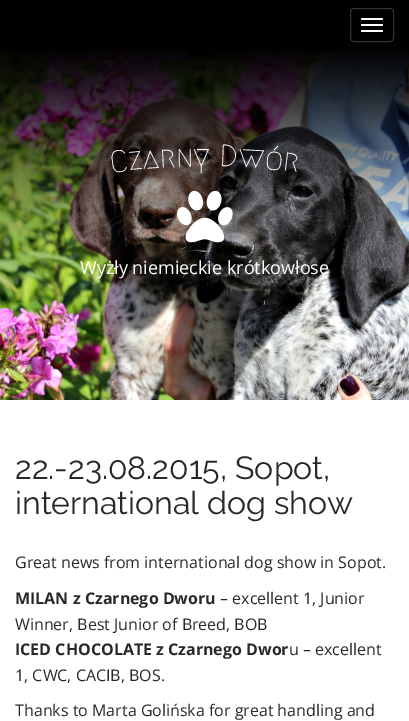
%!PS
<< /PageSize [409 721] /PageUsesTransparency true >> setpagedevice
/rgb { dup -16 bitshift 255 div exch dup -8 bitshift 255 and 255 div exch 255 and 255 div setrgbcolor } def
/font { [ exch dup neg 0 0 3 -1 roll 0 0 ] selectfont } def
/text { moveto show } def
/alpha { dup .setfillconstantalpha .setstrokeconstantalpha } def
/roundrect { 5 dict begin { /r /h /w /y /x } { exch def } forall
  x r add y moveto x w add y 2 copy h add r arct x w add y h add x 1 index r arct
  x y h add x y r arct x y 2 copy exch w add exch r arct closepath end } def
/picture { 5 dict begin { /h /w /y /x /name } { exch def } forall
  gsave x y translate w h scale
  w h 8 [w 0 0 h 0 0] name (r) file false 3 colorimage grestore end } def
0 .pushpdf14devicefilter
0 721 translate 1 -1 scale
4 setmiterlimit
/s1 { /Megrim-Medium 31 font 16#FFFFFF rgb } def
/s2 { /OpenSans-Regular 18 font 16#FFFFFF rgb } def
/s3 { /Raleway-Thin 32 font 16#282828 rgb } def
/s4 { /OpenSans-Regular 16 font 16#282828 rgb } def
/s5 { /OpenSans-Bold 16 font 16#282828 rgb } def
16#FFFFFF rgb
0 0 409 721 rectfill
(pic1.raw) 0 0 409 400 picture
0.85 alpha
16#000000 rgb
57 46 352 4 rectfill
1 alpha
16#333333 rgb
350.5 8.5 43 33 3.5 roundrect stroke
16#FFFFFF rgb
361 18 22 2 1 roundrect fill
361 24 22 2 1 roundrect fill
361 30 22 2 1 roundrect fill
/Megrim-Medium 31 font
gsave 111 173 translate -7 rotate 0 0 moveto (C) show grestore
gsave 129 170 translate -5 rotate 0 0 moveto (z) show grestore
gsave 143 169 translate -4 rotate 0 0 moveto (a) show grestore
gsave 160 168 translate -3 rotate 0 0 moveto (r) show grestore
gsave 176 167 translate -1 rotate 0 0 moveto (n) show grestore
(y) 193 167 text
gsave 219 166 translate 2 rotate 0 0 moveto (D) show grestore
gsave 238 167 translate 3 rotate 0 0 moveto (w) show grestore
gsave 264 169 translate 5 rotate 0 0 moveto (ó) show grestore
gsave 282 170 translate 7 rotate 0 0 moveto (r) show grestore
(pic2.raw) 177 190 56 53 picture
s2
(Wyżły niemieckie krótkowłose) 80 274 text
s3
(22.-23.08.2015, Sopot,) 15 479 text
(international dog show) 15 514 text
s4
(Great news from international dog show in Sopot.) 15 568 text
s5
(MILAN z Czarnego Dworu) 15 604 text
s4
(– excellent 1, Junior) 220 604 text
(Winner, Best Junior of Breed, BOB) 15 630 text
s5
(ICED CHOCOLATE z Czarnego Dwor) 15 655 text
s4
(u – excellent) 289 655 text
(1, CWC, CACIB, BOS.) 15 681 text
(Thanks to Marta Golińska for great handling and) 15 716 text
.poppdf14devicefilter showpage
